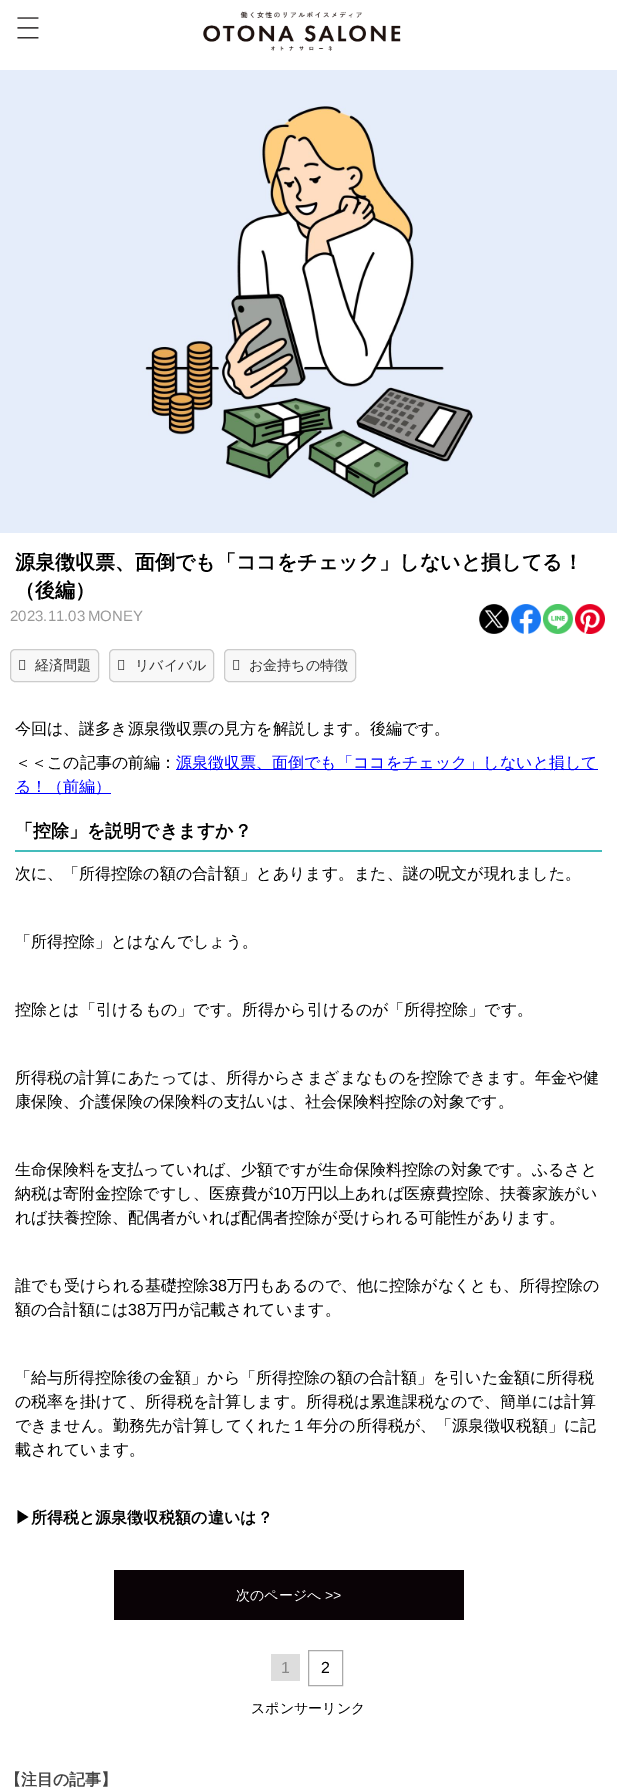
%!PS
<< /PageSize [617 1790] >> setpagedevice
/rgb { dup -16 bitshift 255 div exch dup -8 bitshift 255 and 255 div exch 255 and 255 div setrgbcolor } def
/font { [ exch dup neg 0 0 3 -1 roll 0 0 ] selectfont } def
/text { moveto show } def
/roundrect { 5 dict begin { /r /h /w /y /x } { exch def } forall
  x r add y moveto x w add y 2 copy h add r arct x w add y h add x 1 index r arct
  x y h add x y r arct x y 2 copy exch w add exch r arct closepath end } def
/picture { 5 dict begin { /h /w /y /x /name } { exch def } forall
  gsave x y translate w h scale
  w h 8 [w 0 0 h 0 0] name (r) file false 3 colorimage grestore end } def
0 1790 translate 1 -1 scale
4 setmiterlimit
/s1 { /WenQuanYiZenHei-Bold 20 font 16#000000 rgb } def
/s2 { /LiberationSans-Regular 15 font 16#999999 rgb } def
/s3 { /WenQuanYiZenHei-Medium 14 font 16#333333 rgb } def
/s4 { /WenQuanYiZenHei-Medium 16 font 16#000000 rgb } def
/s5 { /WenQuanYiZenHei-Medium 16 font 16#0000FF rgb } def
/s6 { /WenQuanYiZenHei-Bold 18 font 16#000000 rgb } def
/s7 { /LiberationSans-Regular 16 font 16#000000 rgb } def
/s8 { /WenQuanYiZenHei-Bold 16 font 16#000000 rgb } def
/s9 { /WenQuanYiZenHei-Medium 14 font 16#FFFFFF rgb } def
/s10 { /LiberationSans-Regular 14 font 16#FFFFFF rgb } def
/s11 { /LiberationSans-Regular 16 font 16#888888 rgb } def
/s12 { /WenQuanYiZenHei-Medium 14 font 16#000000 rgb } def
/s13 { /WenQuanYiZenHei-Bold 16 font 16#444444 rgb } def
16#FFFFFF rgb
0 0 617 1790 rectfill
(pic1.raw) 17 17 22 22 picture
(pic2.raw) 203 11 198 40 picture
(pic3.raw) 0 70 617 463 picture
s1
(源泉徴収票、面倒でも「ココをチェック」しないと損してる！) 15 569 text
(（後編）) 15 597 text
s2
(2023.11.03) 10 621 text
(MONEY) 88 621 text
(pic4.raw) 479 604 30 30 picture
(pic5.raw) 511 604 30 30 picture
(pic6.raw) 543 604 30 30 picture
(pic7.raw) 575 604 30 30 picture
16#F8F8F8 rgb
10.5 649.5 88 32 4.5 roundrect gsave fill grestore
16#CCCCCC rgb
stroke
(pic8.raw) 19 660 7 10 picture
s3
(経済問題) 35 670 text
16#F8F8F8 rgb
109.5 649.5 104 32 4.5 roundrect gsave fill grestore
16#CCCCCC rgb
stroke
(pic8.raw) 118 660 7 10 picture
s3
(リバイバル) 135 670 text
16#F8F8F8 rgb
224.5 649.5 131 32 4.5 roundrect gsave fill grestore
16#CCCCCC rgb
stroke
(pic8.raw) 233 660 7 10 picture
s3
(お金持ちの特徴) 249 670 text
s4
(今回は、謎多き源泉徴収票の見方を解説します。後編です。) 15 734 text
(＜＜この記事の前編：) 15 768 text
16#0000FF rgb
176 769 422 1 rectfill
(源泉徴収票、面倒でも「ココをチェック」しないと損して) 176 768 text
15 793 96 1 rectfill
(る！（前編）) 15 792 text
16#44BCBB rgb
15 850 587 2 rectfill
s6
(「控除」を説明できますか？) 15 837 text
s4
(次に、「所得控除の額の合計額」とあります。また、謎の呪文が現れました。) 15 879 text
(「所得控除」とはなんでしょう。) 15 947 text
(控除とは「引けるもの」です。所得から引けるのが「所得控除」です。) 15 1015 text
(所得税の計算にあたっては、所得からさまざまなものを控除できます。年金や健) 15 1083 text
(康保険、介護保険の保険料の支払いは、社会保険料控除の対象です。) 15 1107 text
(生命保険料を支払っていれば、少額ですが生命保険料控除の対象です。ふるさと) 15 1175 text
(納税は寄附金控除ですし、医療費が) 15 1199 text
s7
(10) 273 1199 text
s4
(万円以上あれば医療費控除、扶養家族がい) 291 1199 text
(れば扶養控除、配偶者がいれば配偶者控除が受けられる可能性があります。) 15 1223 text
(誰でも受けられる基礎控除) 15 1291 text
s7
(38) 209 1291 text
s4
(万円もあるので、他に控除がなくとも、所得控除の) 227 1291 text
(額の合計額には) 15 1315 text
s7
(38) 128 1315 text
s4
(万円が記載されています。) 146 1315 text
(「給与所得控除後の金額」から「所得控除の額の合計額」を引いた金額に所得税) 15 1383 text
(の税率を掛けて、所得税を計算します。所得税は累進課税なので、簡単には計算) 15 1407 text
(できません。勤務先が計算してくれた１年分の所得税が、「源泉徴収税額」に記) 15 1431 text
(載されています。) 15 1455 text
s8
(▶所得税と源泉徴収税額の違いは？) 15 1523 text
16#0A0306 rgb
114 1570 350 50 rectfill
s9
(次のページへ) 236 1600 text
s10
(>>) 325 1600 text
16#DDDDDD rgb
271 1654 29 27 rectfill
s11
(1) 281 1673 text
16#AAAAAA rgb
308.5 1650.5 34 35 rectstroke
s7
(2) 321 1673 text
s12
(スポンサーリンク) 251 1713 text
s13
(【注目の記事】) 5 1785 text
showpage
